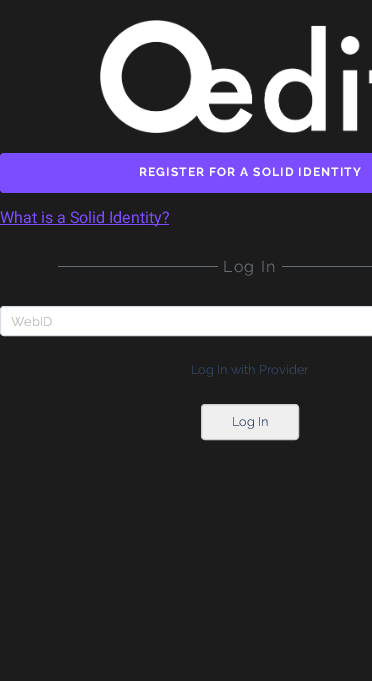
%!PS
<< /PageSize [372 681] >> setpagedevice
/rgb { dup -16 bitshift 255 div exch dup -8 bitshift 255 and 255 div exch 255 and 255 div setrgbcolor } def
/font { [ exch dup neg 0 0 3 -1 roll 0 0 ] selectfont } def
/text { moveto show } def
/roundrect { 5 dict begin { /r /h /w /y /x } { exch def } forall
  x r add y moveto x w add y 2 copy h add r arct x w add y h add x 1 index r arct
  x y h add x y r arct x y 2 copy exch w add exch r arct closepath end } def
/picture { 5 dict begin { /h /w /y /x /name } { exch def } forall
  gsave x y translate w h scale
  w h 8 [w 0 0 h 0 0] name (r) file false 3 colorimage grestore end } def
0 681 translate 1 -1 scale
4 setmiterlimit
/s1 { /Roboto-Regular 16 font 16#7C4DFF rgb } def
/s2 { /Raleway-Regular 12.75 font 16#B3B3B3 rgb } def
/s3 { /Raleway-Regular 12.75 font 16#354866 rgb } def
16#1C1C1C rgb
0 0 372 681 rectfill
(pic1.raw) 100 20 272 113 picture
16#7C4DFF rgb
0 153 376 40 4 roundrect fill
/Raleway-Bold 12 font
16#FFFFFF rgb
139 176 moveto 1.1 0 (REGISTER FOR A SOLID IDENTITY) ashow
16#7C4DFF rgb
0 224 169 1 rectfill
s1
(What is a Solid Identity?) 0 223 text
16#656E75 rgb
58 266 160 1 rectfill
/Raleway-Regular 16 font
223 272 moveto 1.25 0 (Log In) ashow
282 266 90 1 rectfill
16#FFFFFF rgb
0.5 306.5 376 29 3.5 roundrect gsave fill grestore
16#DAE0E6 rgb
stroke
s2
(WebID) 11 326 text
s3
(Log In with Provider) 191 374 text
16#EFEFEF rgb
201.5 404.5 97 35 3.5 roundrect gsave fill grestore
16#CCCCCC rgb
stroke
s3
(Log In) 232 426 text
showpage
